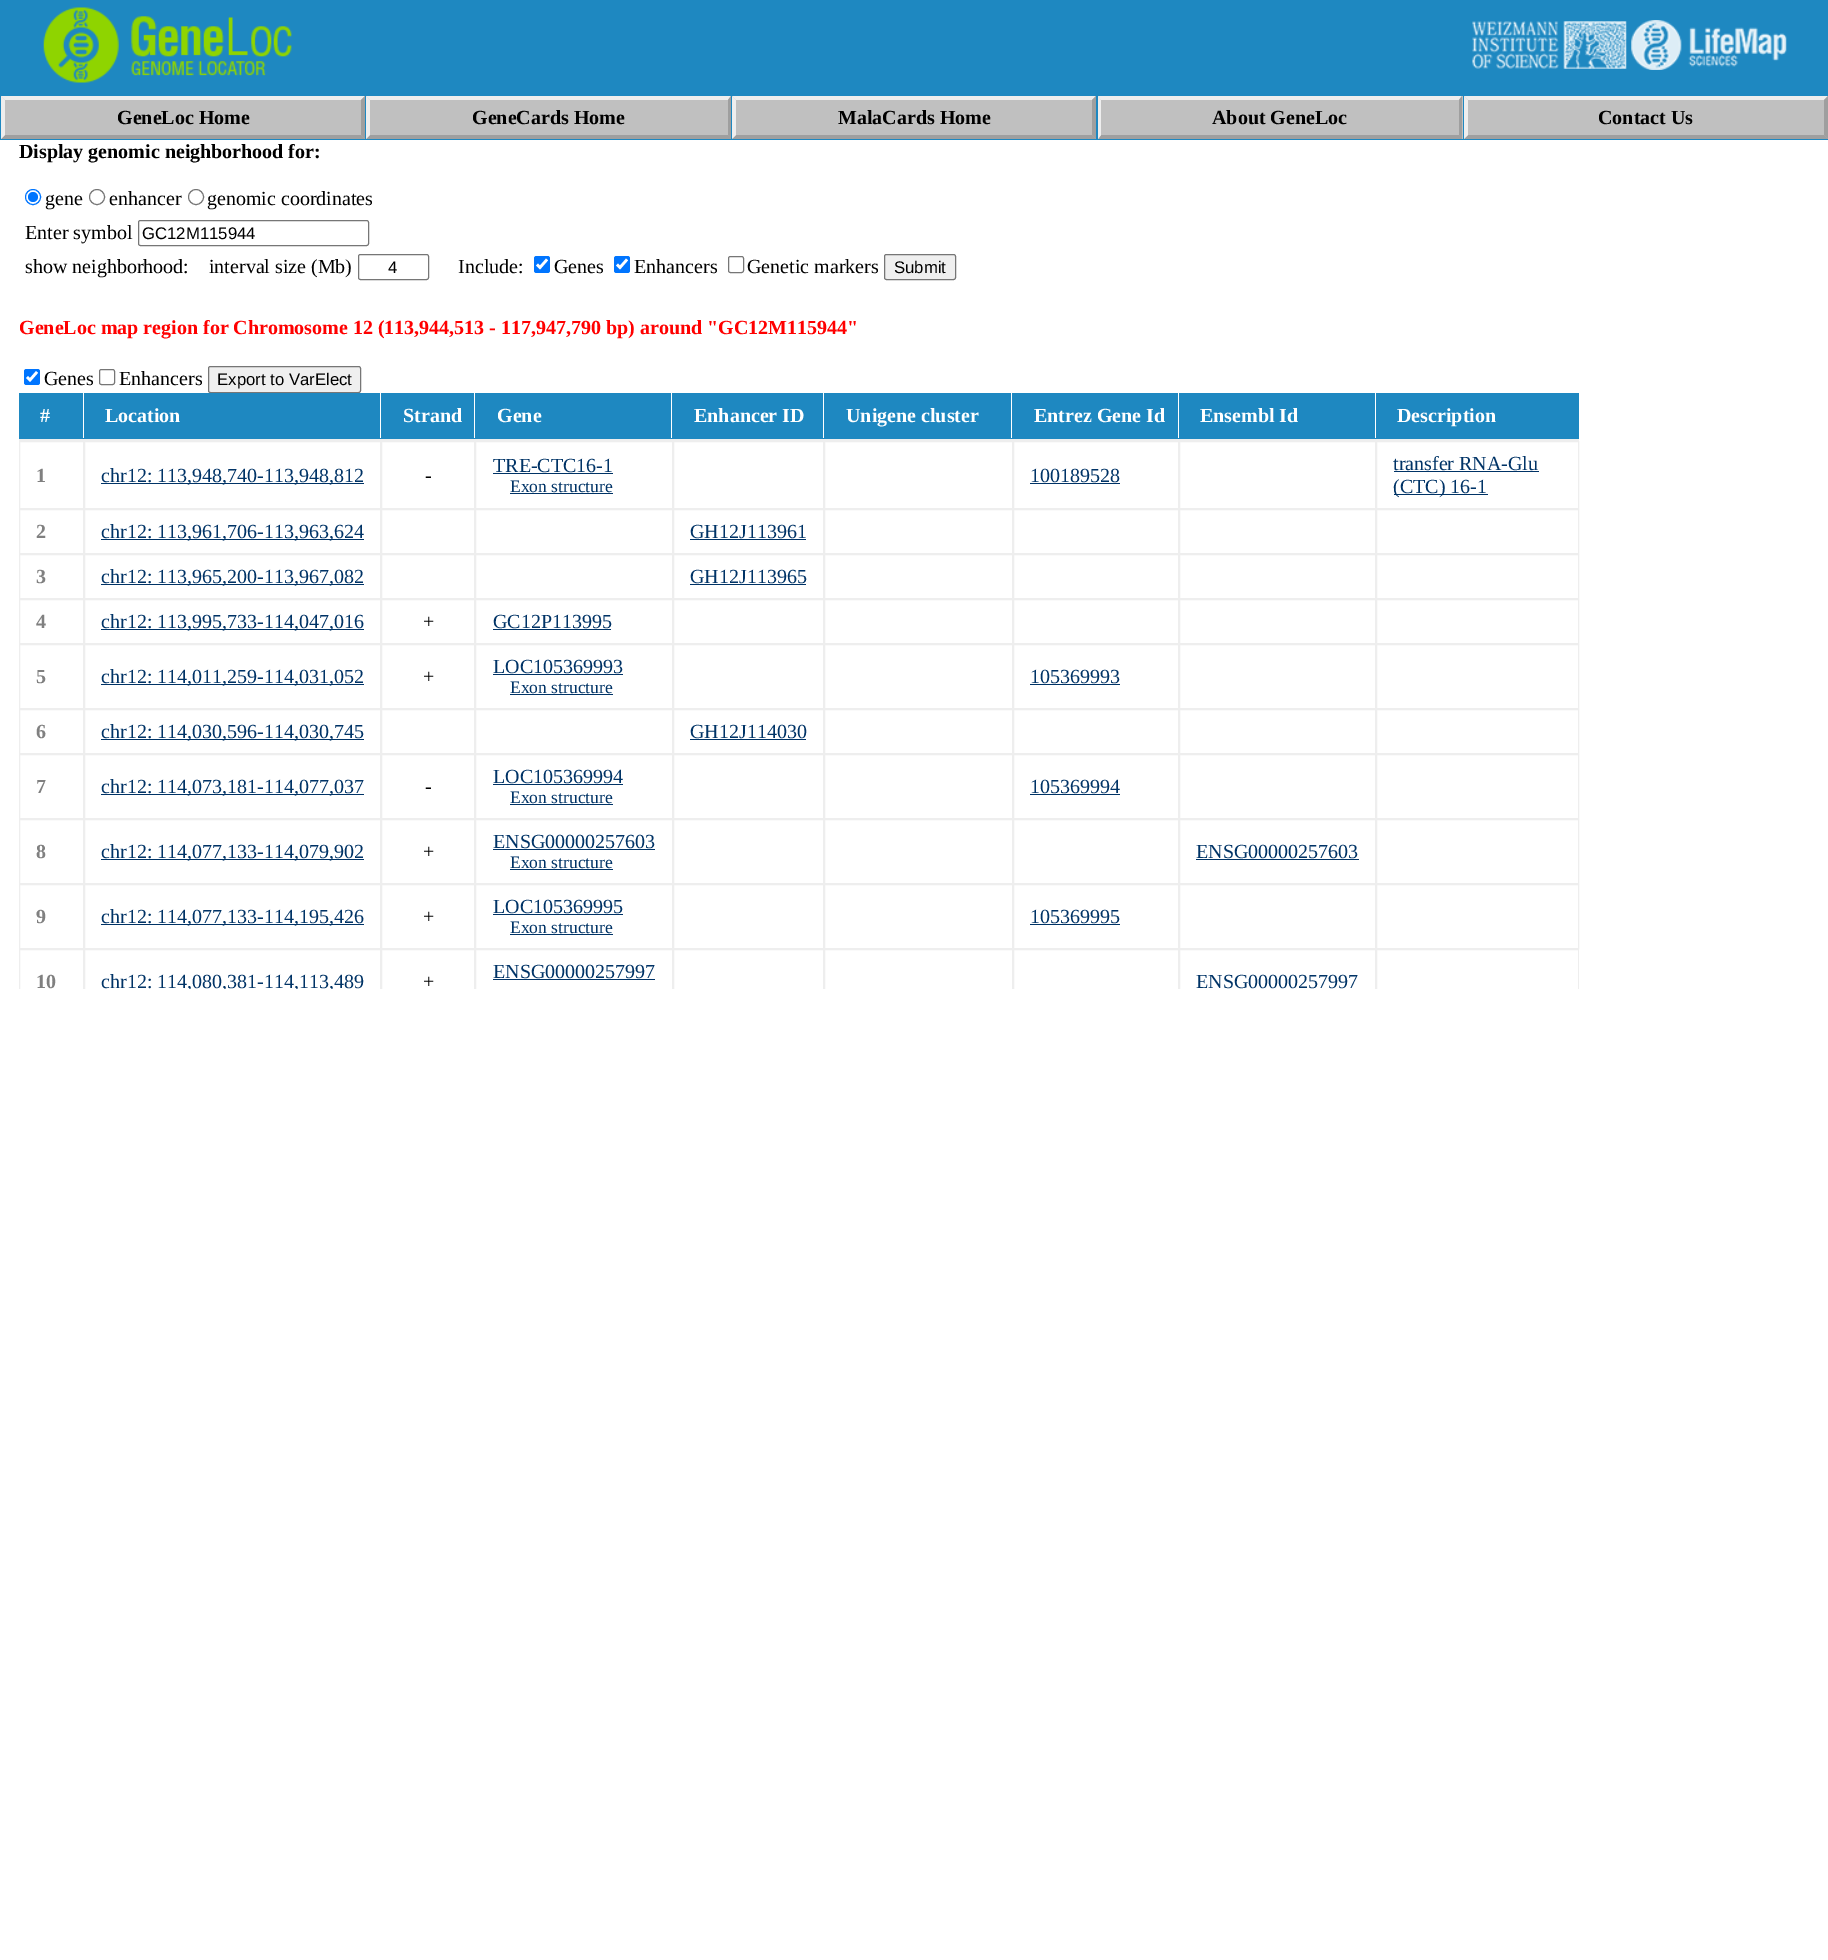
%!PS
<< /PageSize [1828 1960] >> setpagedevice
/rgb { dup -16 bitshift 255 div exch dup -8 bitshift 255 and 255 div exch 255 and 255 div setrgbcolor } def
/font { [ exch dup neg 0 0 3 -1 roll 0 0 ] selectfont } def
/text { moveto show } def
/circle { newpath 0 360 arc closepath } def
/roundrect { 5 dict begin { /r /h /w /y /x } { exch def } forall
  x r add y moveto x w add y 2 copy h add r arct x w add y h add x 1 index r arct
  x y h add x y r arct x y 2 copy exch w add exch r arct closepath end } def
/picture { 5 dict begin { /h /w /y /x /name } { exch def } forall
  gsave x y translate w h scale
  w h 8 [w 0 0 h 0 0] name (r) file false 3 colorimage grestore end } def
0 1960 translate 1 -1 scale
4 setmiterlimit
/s1 { /LiberationSerif-Bold 20 font 16#000000 rgb } def
/s2 { /LiberationSerif-Regular 20 font 16#000000 rgb } def
/s3 { /LiberationSans-Regular 16.75 font 16#000000 rgb } def
/s4 { /LiberationSerif-Bold 20 font 16#FF0000 rgb } def
/s5 { /LiberationSerif-Bold 20 font 16#FFFFFF rgb } def
/s6 { /LiberationSerif-Bold 20 font 16#808080 rgb } def
/s7 { /LiberationSerif-Regular 20 font 16#003366 rgb } def
/s8 { /LiberationSerif-Regular 17.5 font 16#003366 rgb } def
16#FFFFFF rgb
0 0 1828 1960 rectfill
16#1E88C1 rgb
0 0 1828 140 rectfill
(pic1.raw) 43 7 249 76 picture
(pic2.raw) 1472 21 155 48 picture
(pic3.raw) 1631 20 156 50 picture
16#C0C0C0 rgb
1 96 364 43 rectfill
16#EEEEEE rgb
1 96 moveto 365 96 lineto 361 100 lineto 5 100 lineto closepath fill
16#9F9F9F rgb
365 96 moveto 365 139 lineto 361 135 lineto 361 100 lineto closepath fill
365 139 moveto 1 139 lineto 5 135 lineto 361 135 lineto closepath fill
16#EEEEEE rgb
1 139 moveto 1 96 lineto 5 100 lineto 5 135 lineto closepath fill
s1
(GeneLoc Home) 117 124 text
16#C0C0C0 rgb
366 96 365 43 rectfill
16#EEEEEE rgb
366 96 moveto 731 96 lineto 728 100 lineto 370 100 lineto closepath fill
16#9F9F9F rgb
731 96 moveto 731 139 lineto 728 135 lineto 728 100 lineto closepath fill
731 139 moveto 366 139 lineto 370 135 lineto 728 135 lineto closepath fill
16#EEEEEE rgb
366 139 moveto 366 96 lineto 370 100 lineto 370 135 lineto closepath fill
s1
(GeneCards Home) 472 124 text
16#C0C0C0 rgb
733 96 363 43 rectfill
16#EEEEEE rgb
732 96 moveto 1096 96 lineto 1092 100 lineto 736 100 lineto closepath fill
16#9F9F9F rgb
1096 96 moveto 1096 139 lineto 1092 135 lineto 1092 100 lineto closepath fill
1096 139 moveto 732 139 lineto 736 135 lineto 1092 135 lineto closepath fill
16#EEEEEE rgb
732 139 moveto 732 96 lineto 736 100 lineto 736 135 lineto closepath fill
s1
(MalaCards Home) 838 124 text
16#C0C0C0 rgb
1098 96 365 43 rectfill
16#EEEEEE rgb
1098 96 moveto 1462 96 lineto 1459 100 lineto 1101 100 lineto closepath fill
16#9F9F9F rgb
1462 96 moveto 1462 139 lineto 1459 135 lineto 1459 100 lineto closepath fill
1462 139 moveto 1098 139 lineto 1101 135 lineto 1459 135 lineto closepath fill
16#EEEEEE rgb
1098 139 moveto 1098 96 lineto 1101 100 lineto 1101 135 lineto closepath fill
s1
(About GeneLoc) 1212 124 text
16#C0C0C0 rgb
1464 96 364 43 rectfill
16#EEEEEE rgb
1464 96 moveto 1828 96 lineto 1824 100 lineto 1468 100 lineto closepath fill
16#9F9F9F rgb
1828 96 moveto 1828 139 lineto 1824 135 lineto 1824 100 lineto closepath fill
1828 139 moveto 1464 139 lineto 1468 135 lineto 1824 135 lineto closepath fill
16#EEEEEE rgb
1464 139 moveto 1464 96 lineto 1468 100 lineto 1468 135 lineto closepath fill
s1
(Contact Us) 1598 124 text
(Display genomic neighborhood for:) 19 158 text
16#0075FF rgb
33 197 7.5 circle stroke
33 197 5 circle fill
s2
(gene) 45 205 text
16#767676 rgb
97 197 7.5 circle stroke
s2
(enhancer) 109 205 text
16#767676 rgb
196 197 7.5 circle stroke
s2
(genomic coordinates) 207 205 text
(Enter symbol) 25 239 text
16#767676 rgb
138.5 220.5 230 25 2 roundrect stroke
s3
(GC12M115944) 142 239 text
s2
(show neighborhood:    interval size \(Mb\)) 25 273 text
16#767676 rgb
358.5 254.5 70 25 2 roundrect stroke
s3
(4) 388 273 text
s2
(Include:) 458 273 text
16#0075FF rgb
534 256 16 17 2.5 roundrect fill
16#FFFFFF rgb
2.6 setlinewidth
537 264.5 moveto 540 267.5 lineto 547 259.5 lineto stroke
s2
(Genes) 554 273 text
16#0075FF rgb
614 256 16 17 2.5 roundrect fill
16#FFFFFF rgb
617 264.5 moveto 620 267.5 lineto 627 259.5 lineto stroke
s2
(Enhancers) 634 273 text
16#767676 rgb
1 setlinewidth
728.5 256.5 15 16 2 roundrect stroke
s2
(Genetic markers) 747 273 text
16#EFEFEF rgb
884.5 254.5 71 25 2 roundrect gsave fill grestore
16#767676 rgb
stroke
s3
(Submit) 894 273 text
s4
(GeneLoc map region for Chromosome 12 \(113,944,513 - 117,947,790 bp\) around "GC12M115944") 19 334 text
16#0075FF rgb
24 369 16 16 2.5 roundrect fill
16#FFFFFF rgb
2.6 setlinewidth
27 377 moveto 30 380 lineto 37 372 lineto stroke
s2
(Genes) 44 385 text
16#767676 rgb
1 setlinewidth
99.5 369.5 15 15 2 roundrect stroke
s2
(Enhancers) 119 385 text
16#EFEFEF rgb
208.5 366.5 152 26 2 roundrect gsave fill grestore
16#767676 rgb
stroke
s3
(Export to VarElect) 217 385 text
16#1E88C1 rgb
19 393 1560 46 rectfill
16#EEEEEE rgb
19 439 1560 2 rectfill
s5
(#) 40 422 text
83 393 1 45 rectfill
(Location) 105 422 text
380 393 1 45 rectfill
(Strand) 403 422 text
474 393 1 45 rectfill
(Gene) 497 422 text
671 393 1 45 rectfill
(Enhancer ID) 694 422 text
823 393 1 45 rectfill
(Unigene cluster) 846 422 text
1011 393 1 45 rectfill
(Entrez Gene Id) 1034 422 text
1178 393 1 45 rectfill
(Ensembl Id) 1200 422 text
1375 393 1 45 rectfill
(Description) 1397 422 text
16#EEEEEE rgb
19.5 441.5 64 67 rectstroke
s6
(1) 36 482 text
16#EEEEEE rgb
84.5 441.5 296 67 rectstroke
16#003366 rgb
101 483 263 1 rectfill
s7
(chr12: 113,948,740-113,948,812) 101 482 text
16#EEEEEE rgb
381.5 441.5 93 67 rectstroke
s2
(-) 425 482 text
16#EEEEEE rgb
475.5 441.5 197 67 rectstroke
s7
(TRE-CTC16-1) 493 472 text
493 473 120 1 rectfill
s8
(Exon structure) 510 492 text
510 493 103 1 rectfill
16#EEEEEE rgb
673.5 441.5 150 67 rectstroke
824.5 441.5 188 67 rectstroke
1013.5 441.5 165 67 rectstroke
s7
(100189528) 1030 482 text
1030 483 90 1 rectfill
16#EEEEEE rgb
1179.5 441.5 196 67 rectstroke
1376.5 441.5 202 67 rectstroke
s7
(transfer RNA-Glu) 1393 470 text
1394 471 145 1 rectfill
1394 494 94 1 rectfill
(\(CTC\) 16-1) 1393 493 text
16#EEEEEE rgb
19.5 509.5 64 44 rectstroke
s6
(2) 36 538 text
16#EEEEEE rgb
84.5 509.5 296 44 rectstroke
16#003366 rgb
101 539 263 1 rectfill
s7
(chr12: 113,961,706-113,963,624) 101 538 text
16#EEEEEE rgb
381.5 509.5 93 44 rectstroke
475.5 509.5 197 44 rectstroke
673.5 509.5 150 44 rectstroke
s7
(GH12J113961) 690 538 text
690 539 116 1 rectfill
16#EEEEEE rgb
824.5 509.5 188 44 rectstroke
1013.5 509.5 165 44 rectstroke
1179.5 509.5 196 44 rectstroke
1376.5 509.5 202 44 rectstroke
19.5 554.5 64 44 rectstroke
s6
(3) 36 583 text
16#EEEEEE rgb
84.5 554.5 296 44 rectstroke
16#003366 rgb
101 584 263 1 rectfill
s7
(chr12: 113,965,200-113,967,082) 101 583 text
16#EEEEEE rgb
381.5 554.5 93 44 rectstroke
475.5 554.5 197 44 rectstroke
673.5 554.5 150 44 rectstroke
s7
(GH12J113965) 690 583 text
690 584 116 1 rectfill
16#EEEEEE rgb
824.5 554.5 188 44 rectstroke
1013.5 554.5 165 44 rectstroke
1179.5 554.5 196 44 rectstroke
1376.5 554.5 202 44 rectstroke
19.5 599.5 64 44 rectstroke
s6
(4) 36 628 text
16#EEEEEE rgb
84.5 599.5 296 44 rectstroke
16#003366 rgb
101 629 263 1 rectfill
s7
(chr12: 113,995,733-114,047,016) 101 628 text
16#EEEEEE rgb
381.5 599.5 93 44 rectstroke
s2
(+) 423 628 text
16#EEEEEE rgb
475.5 599.5 197 44 rectstroke
s7
(GC12P113995) 493 628 text
493 629 118 1 rectfill
16#EEEEEE rgb
673.5 599.5 150 44 rectstroke
824.5 599.5 188 44 rectstroke
1013.5 599.5 165 44 rectstroke
1179.5 599.5 196 44 rectstroke
1376.5 599.5 202 44 rectstroke
19.5 644.5 64 64 rectstroke
s6
(5) 36 683 text
16#EEEEEE rgb
84.5 644.5 296 64 rectstroke
16#003366 rgb
101 684 263 1 rectfill
s7
(chr12: 114,011,259-114,031,052) 101 683 text
16#EEEEEE rgb
381.5 644.5 93 64 rectstroke
s2
(+) 423 683 text
16#EEEEEE rgb
475.5 644.5 197 64 rectstroke
s7
(LOC105369993) 493 673 text
493 674 130 1 rectfill
s8
(Exon structure) 510 693 text
510 694 103 1 rectfill
16#EEEEEE rgb
673.5 644.5 150 64 rectstroke
824.5 644.5 188 64 rectstroke
1013.5 644.5 165 64 rectstroke
s7
(105369993) 1030 683 text
1030 684 90 1 rectfill
16#EEEEEE rgb
1179.5 644.5 196 64 rectstroke
1376.5 644.5 202 64 rectstroke
19.5 709.5 64 44 rectstroke
s6
(6) 36 738 text
16#EEEEEE rgb
84.5 709.5 296 44 rectstroke
16#003366 rgb
101 739 263 1 rectfill
s7
(chr12: 114,030,596-114,030,745) 101 738 text
16#EEEEEE rgb
381.5 709.5 93 44 rectstroke
475.5 709.5 197 44 rectstroke
673.5 709.5 150 44 rectstroke
s7
(GH12J114030) 690 738 text
690 739 116 1 rectfill
16#EEEEEE rgb
824.5 709.5 188 44 rectstroke
1013.5 709.5 165 44 rectstroke
1179.5 709.5 196 44 rectstroke
1376.5 709.5 202 44 rectstroke
19.5 754.5 64 64 rectstroke
s6
(7) 36 793 text
16#EEEEEE rgb
84.5 754.5 296 64 rectstroke
16#003366 rgb
101 794 263 1 rectfill
s7
(chr12: 114,073,181-114,077,037) 101 793 text
16#EEEEEE rgb
381.5 754.5 93 64 rectstroke
s2
(-) 425 793 text
16#EEEEEE rgb
475.5 754.5 197 64 rectstroke
s7
(LOC105369994) 493 783 text
493 784 130 1 rectfill
s8
(Exon structure) 510 803 text
510 804 103 1 rectfill
16#EEEEEE rgb
673.5 754.5 150 64 rectstroke
824.5 754.5 188 64 rectstroke
1013.5 754.5 165 64 rectstroke
s7
(105369994) 1030 793 text
1030 794 90 1 rectfill
16#EEEEEE rgb
1179.5 754.5 196 64 rectstroke
1376.5 754.5 202 64 rectstroke
19.5 819.5 64 64 rectstroke
s6
(8) 36 858 text
16#EEEEEE rgb
84.5 819.5 296 64 rectstroke
16#003366 rgb
101 859 263 1 rectfill
s7
(chr12: 114,077,133-114,079,902) 101 858 text
16#EEEEEE rgb
381.5 819.5 93 64 rectstroke
s2
(+) 423 858 text
16#EEEEEE rgb
475.5 819.5 197 64 rectstroke
s7
(ENSG00000257603) 493 848 text
493 849 162 1 rectfill
s8
(Exon structure) 510 868 text
510 869 103 1 rectfill
16#EEEEEE rgb
673.5 819.5 150 64 rectstroke
824.5 819.5 188 64 rectstroke
1013.5 819.5 165 64 rectstroke
1179.5 819.5 196 64 rectstroke
s7
(ENSG00000257603) 1196 858 text
1196 859 163 1 rectfill
16#EEEEEE rgb
1376.5 819.5 202 64 rectstroke
19.5 884.5 64 64 rectstroke
s6
(9) 36 923 text
16#EEEEEE rgb
84.5 884.5 296 64 rectstroke
16#003366 rgb
101 924 263 1 rectfill
s7
(chr12: 114,077,133-114,195,426) 101 923 text
16#EEEEEE rgb
381.5 884.5 93 64 rectstroke
s2
(+) 423 923 text
16#EEEEEE rgb
475.5 884.5 197 64 rectstroke
s7
(LOC105369995) 493 913 text
493 914 130 1 rectfill
s8
(Exon structure) 510 933 text
510 934 103 1 rectfill
16#EEEEEE rgb
673.5 884.5 150 64 rectstroke
824.5 884.5 188 64 rectstroke
1013.5 884.5 165 64 rectstroke
s7
(105369995) 1030 923 text
1030 924 90 1 rectfill
16#EEEEEE rgb
1179.5 884.5 196 64 rectstroke
1376.5 884.5 202 64 rectstroke
gsave
19 439 1560 550 rectclip
475.5 949.5 197 64 rectstroke
grestore
s7
(ENSG00000257997) 493 978 text
493 979 162 1 rectfill
gsave
19 439 1560 550 rectclip
16#EEEEEE rgb
673.5 949.5 150 64 rectstroke
824.5 949.5 188 64 rectstroke
1013.5 949.5 165 64 rectstroke
1376.5 949.5 202 64 rectstroke
19.5 949.5 64 64 rectstroke
grestore
s6
(10) 36 988 text
gsave
19 439 1560 550 rectclip
16#EEEEEE rgb
84.5 949.5 296 64 rectstroke
s7
(chr12: 114,080,381-114,113,489) 101 988 text
16#EEEEEE rgb
381.5 949.5 93 64 rectstroke
grestore
s2
(+) 423 988 text
gsave
19 439 1560 550 rectclip
16#EEEEEE rgb
1179.5 949.5 196 64 rectstroke
grestore
s7
(ENSG00000257997) 1196 988 text
showpage
